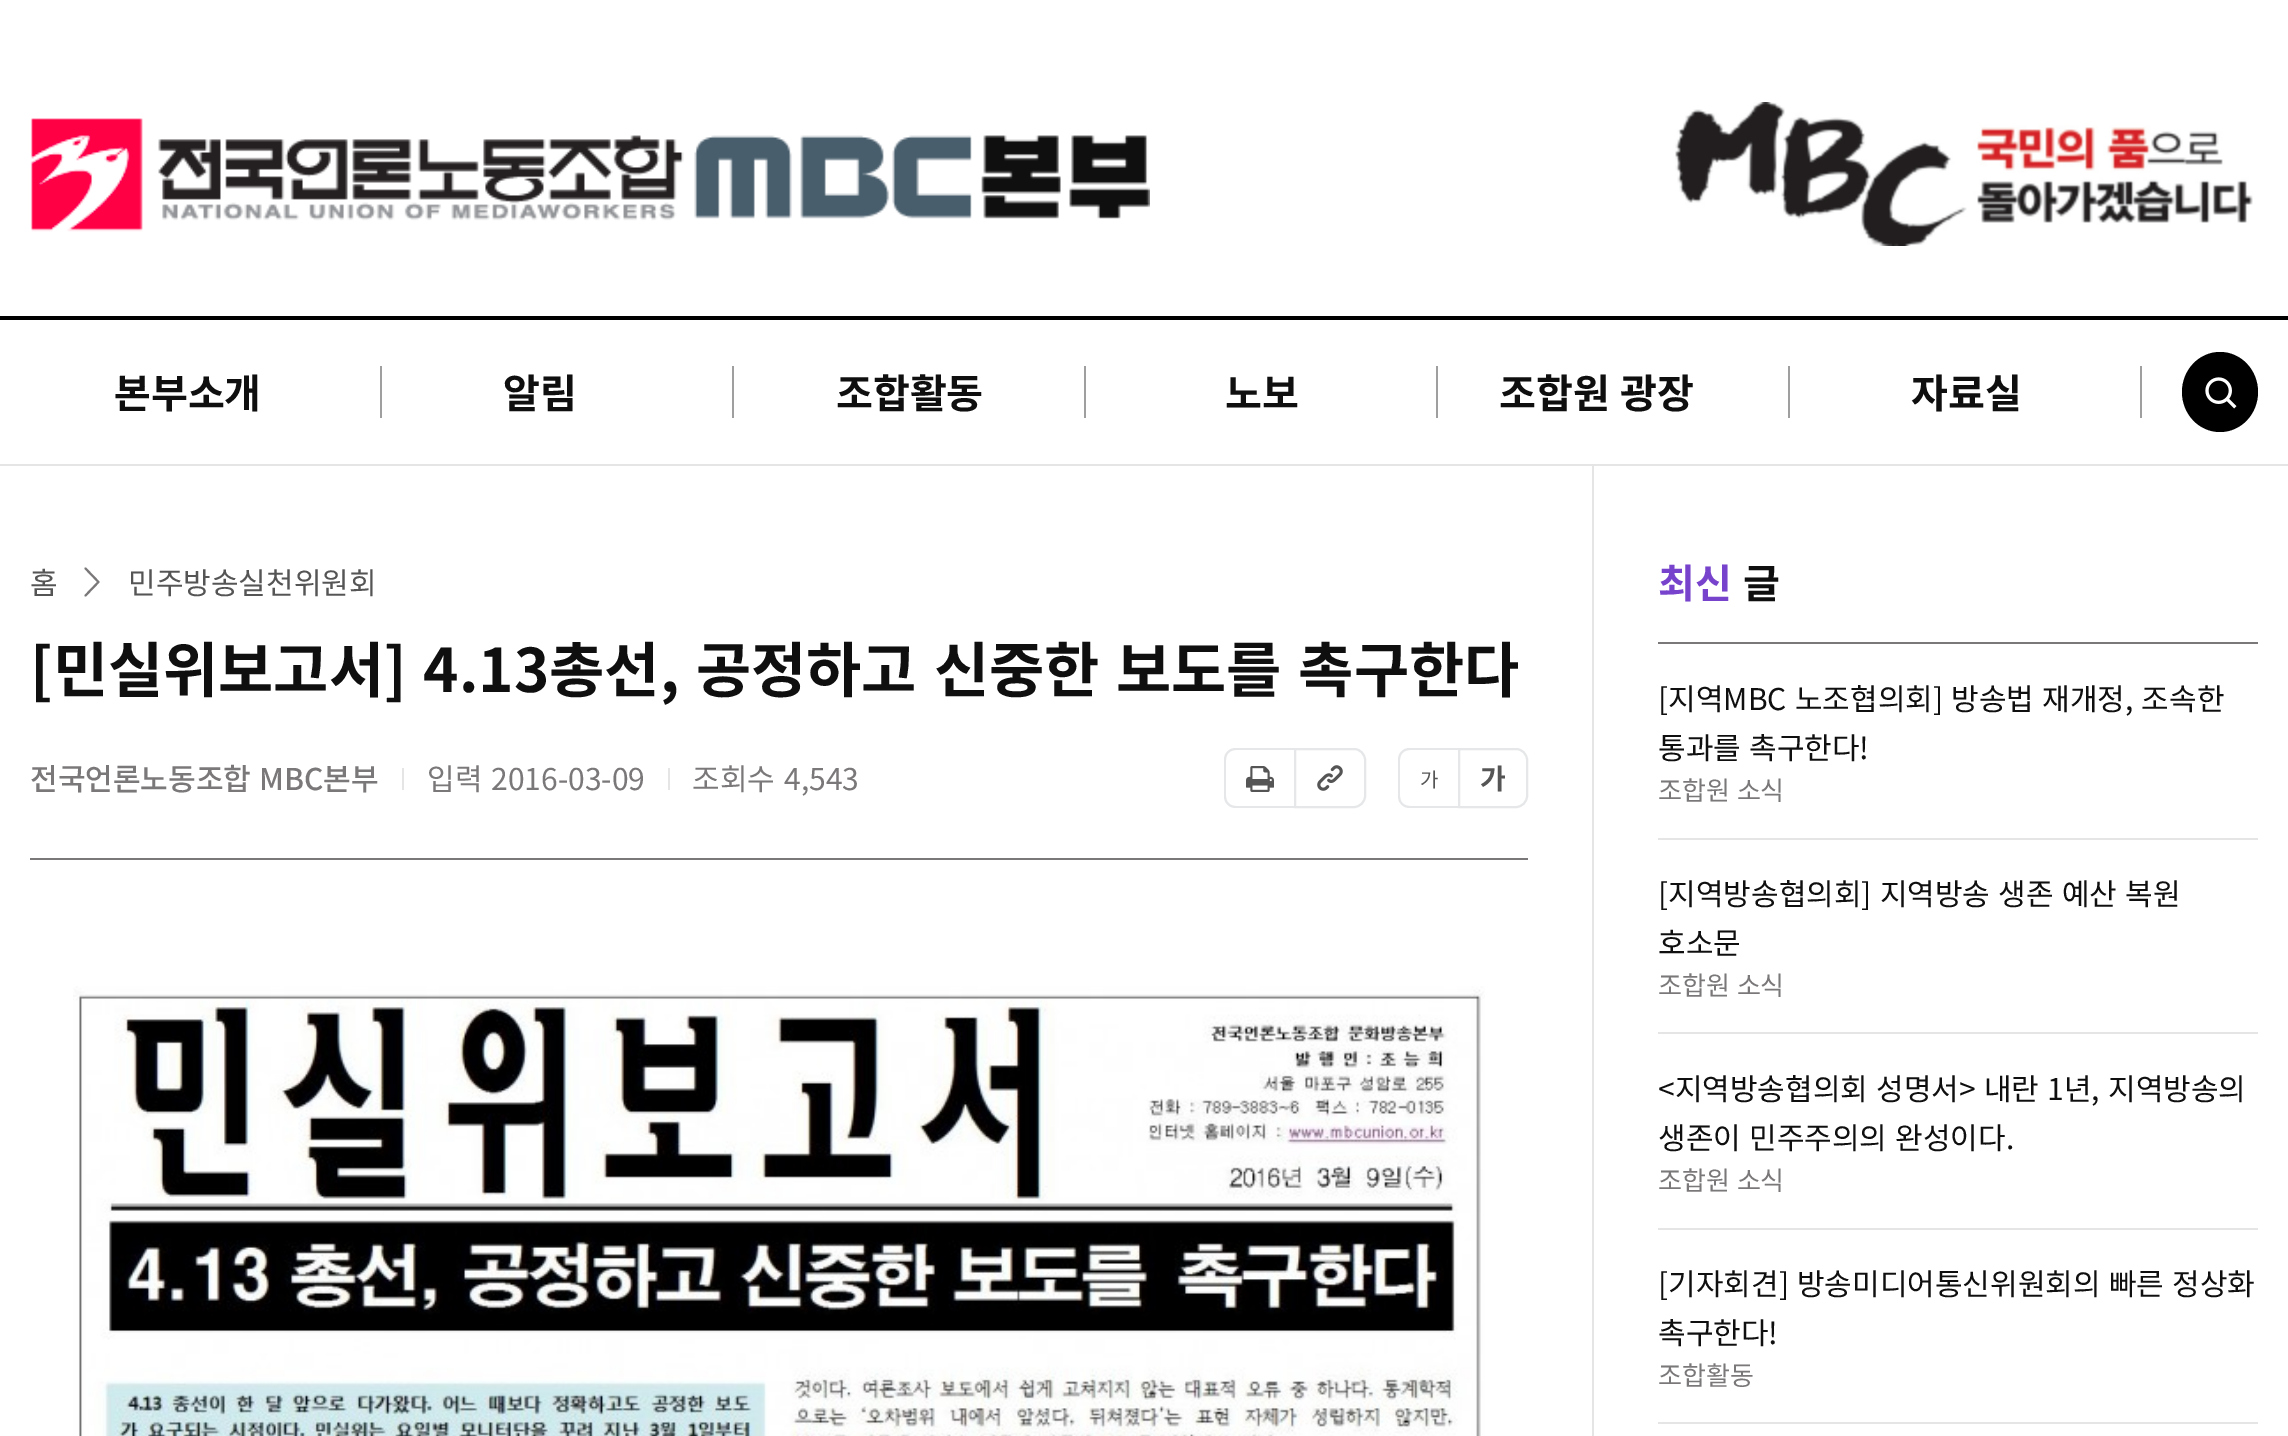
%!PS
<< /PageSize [2288 1436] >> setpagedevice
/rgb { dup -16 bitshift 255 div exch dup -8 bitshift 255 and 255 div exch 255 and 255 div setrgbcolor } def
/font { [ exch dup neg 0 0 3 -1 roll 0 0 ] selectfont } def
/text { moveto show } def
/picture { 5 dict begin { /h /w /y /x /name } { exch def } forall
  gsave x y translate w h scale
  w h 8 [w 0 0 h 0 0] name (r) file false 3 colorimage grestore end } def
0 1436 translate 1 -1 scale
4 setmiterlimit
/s1 { /NotoSansKR-Bold 40 font 16#0F0F0F rgb } def
/s2 { /NotoSansKR-Regular 30 font 16#555555 rgb } def
/s3 { /NotoSansKR-Regular 30 font 16#7A7878 rgb } def
/s4 { /NotoSansKR-Regular 20 font 16#555555 rgb } def
/s5 { /NotoSansKR-Bold 28 font 16#555555 rgb } def
/s6 { /NotoSansKR-Bold 40 font 16#7742CC rgb } def
/s7 { /NotoSansKR-Regular 30 font 16#0F0F0F rgb } def
/s8 { /NotoSansKR-Regular 26 font 16#7A7878 rgb } def
16#FFFFFF rgb
0 0 2288 1436 rectfill
(pic1.raw) 30 118 1120 114 picture
(pic2.raw) 1675 102 578 144 picture
16#000000 rgb
0 316 2288 4 rectfill
16#E5E5E5 rgb
0 464 2288 2 rectfill
s1
(본부소개) 114 408 text
16#9F9F9F rgb
380 366 2 52 rectfill
s1
(알림) 503 408 text
16#9F9F9F rgb
732 366 2 52 rectfill
s1
(조합활동) 836 408 text
16#9F9F9F rgb
1084 366 2 52 rectfill
s1
(노보) 1225 408 text
16#9F9F9F rgb
1436 366 2 52 rectfill
16#0F0F0F rgb
1499 408 moveto 2 0 32 (조합원 광장) widthshow
16#9F9F9F rgb
1788 366 2 52 rectfill
s1
(자료실) 1911 408 text
16#9F9F9F rgb
2140 366 2 52 rectfill
16#000000 rgb
2220 352 moveto 2241 352 2258 370 2258 392 curveto 2258 414 2241 432 2220 432 curveto 2199 432 2182 414 2182 392 curveto 2182 370 2199 352 2220 352 curveto closepath fill
(pic3.raw) 2205 377 32 32 picture
16#E5E5E5 rgb
1592 466 2 970 rectfill
s2
(홈) 30 594 text
16#7A7878 rgb
2 setlinewidth
1 setlinecap
1 setlinejoin
85.5 568.5 moveto 98.5 582 lineto 85.5 595.5 lineto stroke
s2
(민주방송실천위원회) 128 594 text
16#7A7878 rgb
30 858 1498 2 rectfill
/NotoSansKR-Bold 60 font
16#0F0F0F rgb
30 692 moveto 3.25 0 32 ([민실위보고서] 4.13총선, 공정하고 신중한 보도를 촉구한다) widthshow
/NotoSansKR-Medium 30 font
16#7A7878 rgb
30 790 moveto 1.5 0 32 (전국언론노동조합 MBC본부) widthshow
16#E5E5E5 rgb
402 768 2 22 rectfill
/NotoSansKR-Regular 30 font
16#7A7878 rgb
427 790 moveto 2 0 32 (입력 2016-03-09) widthshow
16#E5E5E5 rgb
668 768 2 22 rectfill
s3
(조회수) 692 790 text
(4,543) 784 790 text
16#E6E7E8 rgb
1236 748 moveto 1294 748 lineto 1294 808 lineto 1236 808 lineto 1229 808 1224 803 1224 796 curveto 1224 760 lineto 1224 753 1229 748 1236 748 curveto closepath 1236 750 moveto 1294 750 lineto 1294 806 lineto 1236 806 lineto 1230 806 1226 802 1226 796 curveto 1226 760 lineto 1226 754 1230 750 1236 750 curveto closepath eofill
(pic4.raw) 1246 766 28 26 picture
0 setlinecap
0 setlinejoin
1295 749 moveto 1354 749 lineto 1360 749 1365 754 1365 760 curveto 1365 796 lineto 1365 802 1360 807 1354 807 curveto 1295 807 lineto closepath stroke
(pic5.raw) 1317 765 26 26 picture
1410 748 moveto 1458 748 lineto 1458 808 lineto 1410 808 lineto 1403 808 1398 803 1398 796 curveto 1398 760 lineto 1398 753 1403 748 1410 748 curveto closepath 1410 750 moveto 1458 750 lineto 1458 806 lineto 1410 806 lineto 1404 806 1400 802 1400 796 curveto 1400 760 lineto 1400 754 1404 750 1410 750 curveto closepath eofill
s4
(가) 1420 787 text
16#E6E7E8 rgb
1459 749 moveto 1516 749 lineto 1522 749 1527 754 1527 760 curveto 1527 796 lineto 1527 802 1522 807 1516 807 curveto 1459 807 lineto closepath stroke
s5
(가) 1480 789 text
(pic6.raw) 73 986 1412 450 picture
16#7A7878 rgb
1658 642 600 2 rectfill
s6
(최신) 1658 598 text
s1
(글) 1743 598 text
16#E5E5E5 rgb
1658 838 600 2 rectfill
/NotoSansKR-Regular 30 font
16#0F0F0F rgb
1658 710 moveto 1.5 0 32 ([지역MBC 노조협의회] 방송법 재개정, 조속한) widthshow
1658 759 moveto 1.5 0 32 (통과를 촉구한다!) widthshow
/NotoSansKR-Regular 26 font
16#7A7878 rgb
1658 800 moveto 1 0 32 (조합원 소식) widthshow
16#E5E5E5 rgb
1658 1032 600 2 rectfill
/NotoSansKR-Regular 30 font
16#0F0F0F rgb
1658 905 moveto 1.5 0 32 ([지역방송협의회] 지역방송 생존 예산 복원) widthshow
(호소문) 1658 954 text
/NotoSansKR-Regular 26 font
16#7A7878 rgb
1658 995 moveto 1 0 32 (조합원 소식) widthshow
16#E5E5E5 rgb
1658 1228 600 2 rectfill
/NotoSansKR-Regular 30 font
16#0F0F0F rgb
1658 1100 moveto 1.5 0 32 (<지역방송협의회 성명서> 내란 1년, 지역방송의) widthshow
1658 1149 moveto 1.5 0 32 (생존이 민주주의의 완성이다.) widthshow
/NotoSansKR-Regular 26 font
16#7A7878 rgb
1658 1190 moveto 1 0 32 (조합원 소식) widthshow
16#E5E5E5 rgb
1658 1422 600 2 rectfill
/NotoSansKR-Regular 30 font
16#0F0F0F rgb
1658 1295 moveto 1.5 0 32 ([기자회견] 방송미디어통신위원회의 빠른 정상화) widthshow
(촉구한다!) 1658 1344 text
s8
(조합활동) 1658 1385 text
showpage
